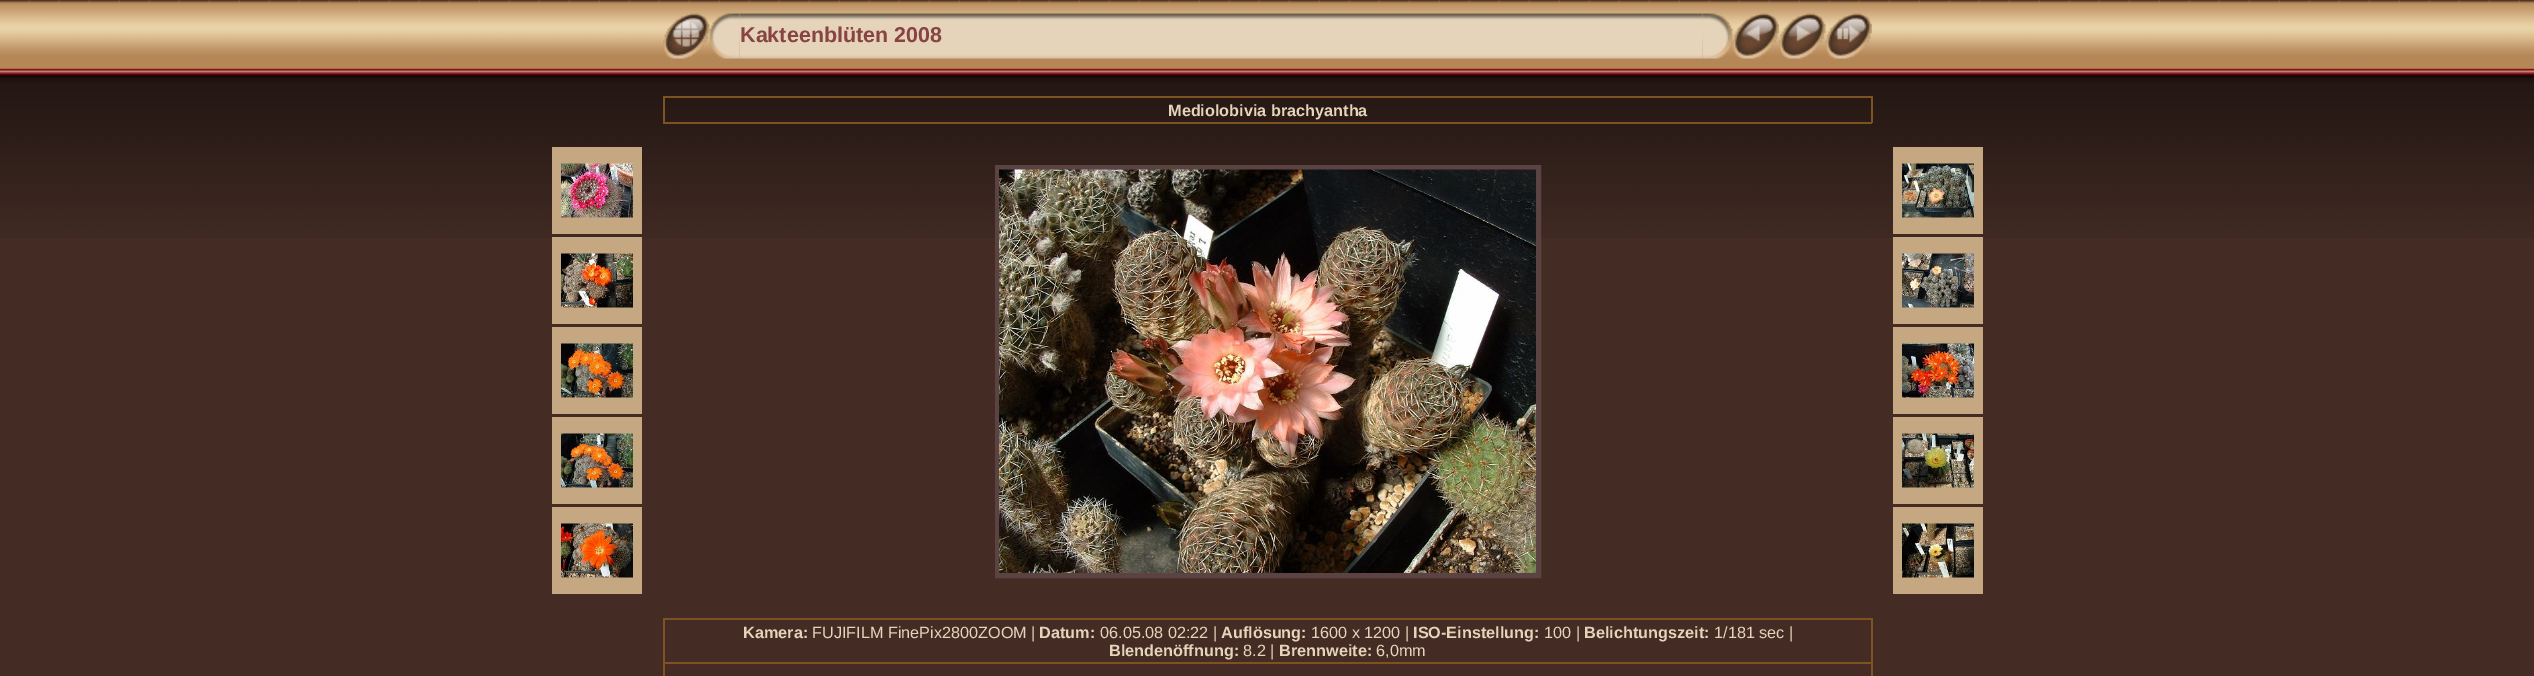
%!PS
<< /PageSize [2534 676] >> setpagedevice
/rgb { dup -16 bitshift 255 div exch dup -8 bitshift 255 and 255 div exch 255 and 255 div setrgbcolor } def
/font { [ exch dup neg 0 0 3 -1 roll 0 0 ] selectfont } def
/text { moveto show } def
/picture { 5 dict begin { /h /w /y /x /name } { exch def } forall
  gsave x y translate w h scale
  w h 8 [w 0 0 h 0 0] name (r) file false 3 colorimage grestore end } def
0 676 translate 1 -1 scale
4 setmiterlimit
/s1 { /LiberationSans-Bold 21.5 font 16#884444 rgb } def
/s2 { /LiberationSans-Bold 16.25 font 16#E6D4BA rgb } def
/s3 { /LiberationSans-Regular 16.25 font 16#E6D4BA rgb } def
16#442C25 rgb
0 0 2534 676 rectfill
(pic1.raw) 0 0 2534 238 picture
(pic2.raw) 663 13 47 46 picture
(pic4.raw) 739 13 964 46 picture
(pic3.raw) 709 13 31 46 picture
s1
(Kakteenblüten 2008) 740 42 text
(pic5.raw) 1702 13 31 46 picture
(pic6.raw) 1732 13 47 46 picture
(pic7.raw) 1779 13 47 46 picture
(pic8.raw) 1825 13 47 46 picture
16#7E5223 rgb
663 96 1209 2 rectfill
1871 96 2 27 rectfill
663 122 1209 2 rectfill
663 96 2 27 rectfill
s2
(Mediolobivia brachyantha) 1168 116 text
16#C5A881 rgb
552 147 90 87 rectfill
(pic9.raw) 561 163 72 55 picture
552 237 90 87 rectfill
(pic10.raw) 561 253 72 55 picture
552 327 90 87 rectfill
(pic11.raw) 561 343 72 55 picture
552 417 90 87 rectfill
(pic12.raw) 561 433 72 55 picture
552 507 90 87 rectfill
(pic13.raw) 561 523 72 55 picture
16#5C4343 rgb
5 setlinewidth
997.5 167.5 541 408 rectstroke
(pic14.raw) 999 169 537 404 picture
16#C5A881 rgb
1893 147 90 87 rectfill
(pic15.raw) 1902 163 72 55 picture
1893 237 90 87 rectfill
(pic16.raw) 1902 253 72 55 picture
1893 327 90 87 rectfill
(pic17.raw) 1902 343 72 55 picture
1893 417 90 87 rectfill
(pic18.raw) 1902 433 72 55 picture
1893 507 90 87 rectfill
(pic19.raw) 1902 523 72 55 picture
16#7E5223 rgb
663 618 1209 2 rectfill
1871 618 2 58 rectfill
663 618 2 58 rectfill
s2
(Kamera:) 743 638 text
s3
(FUJIFILM FinePix2800ZOOM |) 812 638 text
s2
(Datum:) 1039 638 text
s3
(06.05.08 02:22 |) 1100 638 text
s2
(Auflösung:) 1221 638 text
s3
(1600 x 1200 |) 1311 638 text
s2
(ISO-Einstellung:) 1413 638 text
s3
(100 |) 1544 638 text
s2
(Belichtungszeit:) 1584 638 text
s3
(1/181 sec |) 1714 638 text
s2
(Blendenöffnung:) 1109 656 text
s3
(8.2 |) 1243 656 text
s2
(Brennweite:) 1279 656 text
s3
(6,0mm) 1376 656 text
16#7E5223 rgb
663 662 1209 2 rectfill
showpage
